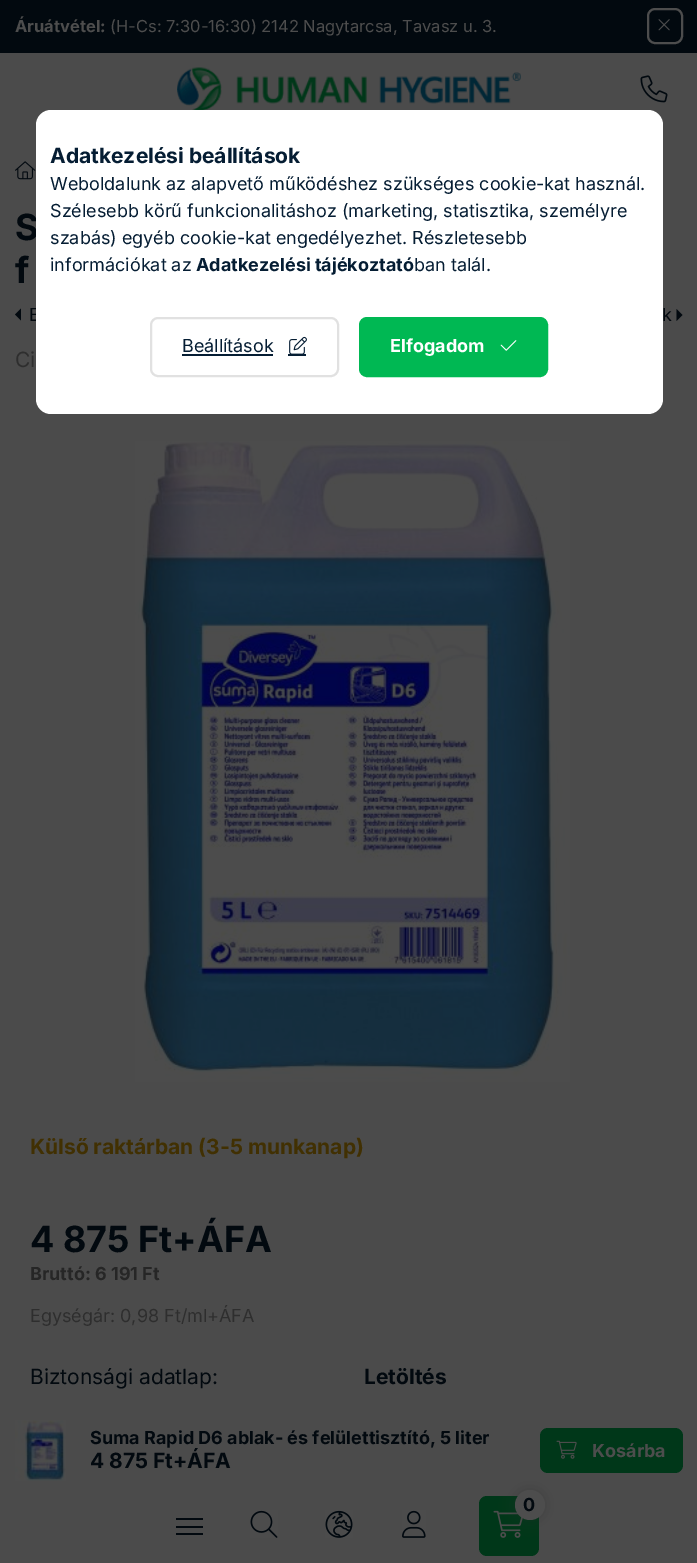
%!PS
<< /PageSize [697 1563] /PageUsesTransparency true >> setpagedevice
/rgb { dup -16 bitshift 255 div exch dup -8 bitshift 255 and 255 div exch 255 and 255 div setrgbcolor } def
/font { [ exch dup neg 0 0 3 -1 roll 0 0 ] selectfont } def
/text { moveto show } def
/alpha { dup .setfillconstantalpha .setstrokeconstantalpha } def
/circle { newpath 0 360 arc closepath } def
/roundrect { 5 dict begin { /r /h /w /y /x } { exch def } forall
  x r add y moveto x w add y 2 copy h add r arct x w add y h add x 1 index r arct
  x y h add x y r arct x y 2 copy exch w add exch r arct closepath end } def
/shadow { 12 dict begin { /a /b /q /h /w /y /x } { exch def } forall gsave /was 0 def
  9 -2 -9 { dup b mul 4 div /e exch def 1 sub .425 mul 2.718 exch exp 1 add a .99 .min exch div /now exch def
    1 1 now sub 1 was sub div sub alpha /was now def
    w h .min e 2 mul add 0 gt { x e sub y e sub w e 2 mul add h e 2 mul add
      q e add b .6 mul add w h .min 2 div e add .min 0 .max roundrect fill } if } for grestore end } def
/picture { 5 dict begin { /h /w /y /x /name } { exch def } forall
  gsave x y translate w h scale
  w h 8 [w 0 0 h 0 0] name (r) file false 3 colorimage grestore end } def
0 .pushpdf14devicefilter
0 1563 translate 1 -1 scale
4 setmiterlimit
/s1 { /Inter-Bold 16.5 font 16#4D4D4D rgb } def
/s2 { /Inter-Regular 16.5 font 16#4D4D4D rgb } def
/s3 { /Inter-Bold 36 font 16#02090F rgb } def
/s4 { /Inter-Regular 18 font 16#02090F rgb } def
/s5 { /Inter-Regular 21 font 16#2E2E2E rgb } def
/s6 { /Inter-Bold 21 font 16#413002 rgb } def
/s7 { /Inter-Bold 18 font 16#262626 rgb } def
/s8 { /Inter-Regular 18 font 16#2E2E2E rgb } def
/s9 { /Inter-Regular 21 font 16#02090F rgb } def
/s10 { /Inter-Bold 21 font 16#02090F rgb } def
/s11 { /Inter-Bold 18 font 16#02090F rgb } def
/s12 { /Inter-Bold 18 font 16#4D4D4D rgb } def
/s13 { /Inter-Bold 21 font 16#051D33 rgb } def
/s14 { /Inter-Regular 18 font 16#051D33 rgb } def
/s15 { /Inter-Bold 18 font 16#051D33 rgb } def
/s16 { /Inter-Bold 18 font 16#FFFFFF rgb } def
16#4B4B4B rgb
0 0 697 1563 rectfill
16#02090F rgb
0 0 697 53 rectfill
s1
(Áruátvétel:) 15 32 text
s2
(\(H-Cs: 7:30-16:30\) 2142 Nagytarcsa, Tavasz u. 3.) 110 32 text
2 setlinewidth
648 9 34 34 7 roundrect stroke
(pic1.raw) 658 19 12 12 picture
(pic2.raw) 177 67 344 43 picture
(pic3.raw) 640 75 28 28 picture
(pic4.raw) 15 161 21 19 picture
s3
(S) 15 240 text
(f) 15 283 text
21 320.5 moveto 21 308.5 lineto 15 314.5 lineto closepath fill
s4
(E) 29 321 text
(k) 662 321 text
676.5 321 moveto 676.5 309 lineto 682.5 315 lineto closepath fill
s5
(Ci) 15 367 text
(pic5.raw) 135 441 435 641 picture
s6
(Külső raktárban \(3-5 munkanap\)) 30 1154 text
s3
(4 875 Ft+ÁFA) 30 1252 text
s7
(Bruttó: 6 191 Ft) 30 1280 text
s8
(Egységár: 0,98 Ft/ml+ÁFA) 30 1322 text
s9
(Biztonsági adatlap:) 30 1384 text
s10
(Letöltés) 364 1384 text
(pic6.raw) 15 1420 51 61 picture
s11
(Suma Rapid D6 ablak- és felülettisztító, 5 liter) 90 1444 text
s10
(4 875 Ft+ÁFA) 90 1468 text
16#003719 rgb
540 1428 143 45 8 roundrect fill
(pic7.raw) 556 1440 21 19 picture
s12
(Kosárba) 592 1457 text
16#003719 rgb
479 1496 60 60 8 roundrect fill
(pic8.raw) 493 1510 30 28 picture
16#2D2D2D rgb
515 1490 30 30 15 7.5 0.35 shadow
16#4D4D4D rgb
530 1505 15 circle fill
s11
(0) 523 1511 text
176 1518 27 2 rectfill
176 1526 27 2 rectfill
176 1533 27 2 rectfill
(pic9.raw) 250 1510 28 28 picture
(pic10.raw) 325 1510 28 28 picture
(pic11.raw) 402 1510 24 28 picture
16#FFFFFF rgb
36 110 627 304 15 roundrect fill
s13
(Adatkezelési beállítások) 50 163 text
s14
(Weboldalunk az alapvető működéshez szükséges cookie-kat használ.) 50 190 text
(Szélesebb körű funkcionalitáshoz \(marketing, statisztika, személyre) 50 217 text
(szabás\) egyéb cookie-kat engedélyezhet. Részletesebb) 50 244 text
(információkat az) 50 271 text
s15
(Adatkezelési tájékoztató) 196 271 text
s14
(ban talál.) 414 271 text
16#E1E1E1 rgb
151 318 187 58 7 roundrect stroke
s14
(Beállítások) 182 352 text
182 354 91 2 rectfill
(pic12.raw) 289 336 18 18 picture
288 354 18 2 rectfill
16#00B853 rgb
360 318 187 58 7 roundrect gsave fill grestore
stroke
s16
(Elfogadom) 390 352 text
(pic13.raw) 500 340 17 11 picture
.poppdf14devicefilter showpage
